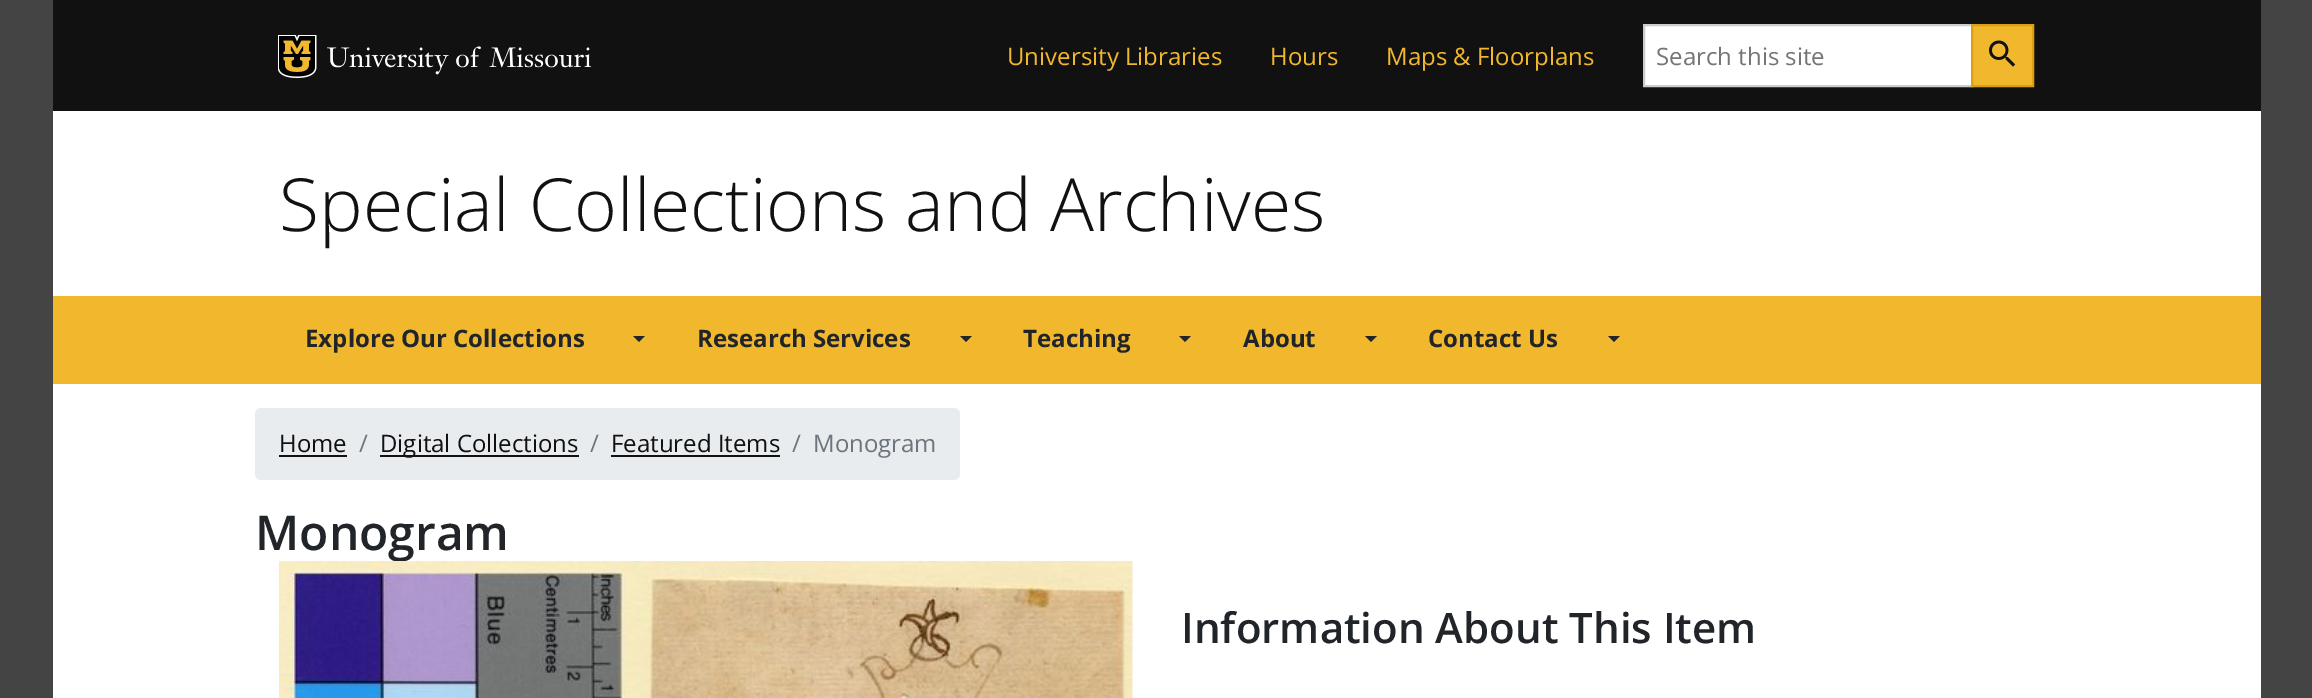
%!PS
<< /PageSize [2312 698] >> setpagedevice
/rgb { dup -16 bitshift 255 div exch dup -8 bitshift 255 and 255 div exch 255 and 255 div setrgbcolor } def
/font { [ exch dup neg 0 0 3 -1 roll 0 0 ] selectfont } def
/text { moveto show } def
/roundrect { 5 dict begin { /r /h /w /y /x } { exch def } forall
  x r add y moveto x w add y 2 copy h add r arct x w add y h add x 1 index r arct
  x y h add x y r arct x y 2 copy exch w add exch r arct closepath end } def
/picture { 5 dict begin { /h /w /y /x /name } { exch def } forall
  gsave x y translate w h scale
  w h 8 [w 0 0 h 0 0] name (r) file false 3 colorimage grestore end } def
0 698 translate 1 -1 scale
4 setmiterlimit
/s1 { /OpenSans-Regular 24 font 16#F1B82D rgb } def
/s2 { /OpenSans-Regular 24 font 16#757575 rgb } def
/s3 { /OpenSans-Light 73.25 font 16#111111 rgb } def
/s4 { /OpenSans-Bold 24 font 16#212529 rgb } def
/s5 { /OpenSans-Regular 24 font 16#111111 rgb } def
/s6 { /OpenSans-Regular 24 font 16#6C757D rgb } def
/s7 { /OpenSans-SemiBold 48 font 16#212529 rgb } def
/s8 { /OpenSans-SemiBold 42 font 16#212529 rgb } def
16#444444 rgb
0 0 2312 698 rectfill
16#FFFFFF rgb
53 111 2208 587 rectfill
16#111111 rgb
53 0 2208 111 rectfill
(pic1.raw) 278 35 39 43 picture
(pic2.raw) 327 46 264 29 picture
s1
(University Libraries) 1007 65 text
(Hours) 1270 65 text
(Maps & Floorplans) 1386 65 text
16#FFFFFF rgb
1644 25 moveto 1972 25 lineto 1972 86 lineto 1644 86 lineto closepath gsave fill grestore
16#CCCCCC rgb
2 setlinewidth
stroke
s2
(Search this site) 1656 65 text
16#F1B82D rgb
1972 25 moveto 2033 25 lineto 2033 86 lineto 1972 86 lineto closepath gsave fill grestore
16#DCA10F rgb
stroke
(pic3.raw) 1989 40 27 27 picture
s3
(Special Collections and Archives) 279 231 text
16#F1B82D rgb
53 296 2208 88 rectfill
s4
(Explore Our Collections) 305 347 text
633 336 moveto 645 336 lineto 639 342 lineto closepath fill
(Research Services) 697 347 text
960 336 moveto 972 336 lineto 966 342 lineto closepath fill
(Teaching) 1023 347 text
1179 336 moveto 1191 336 lineto 1185 342 lineto closepath fill
(About) 1243 347 text
1365 336 moveto 1377 336 lineto 1371 342 lineto closepath fill
(Contact Us) 1428 347 text
1608 336 moveto 1620 336 lineto 1614 342 lineto closepath fill
16#E9ECEF rgb
255 408 705 72 6 roundrect fill
s5
(Home) 279 452 text
279 455 68 2 rectfill
s6
(/) 359 452 text
16#111111 rgb
380 455 199 2 rectfill
(Digital Collections) 380 452 text
s6
(/) 590 452 text
s5
(Featured Items) 611 452 text
611 455 169 2 rectfill
s6
(/) 792 452 text
(Monogram) 813 452 text
s7
(Monogram) 255 550 text
(pic4.raw) 279 561 854 137 picture
s8
(Information About This Item) 1181 643 text
showpage
